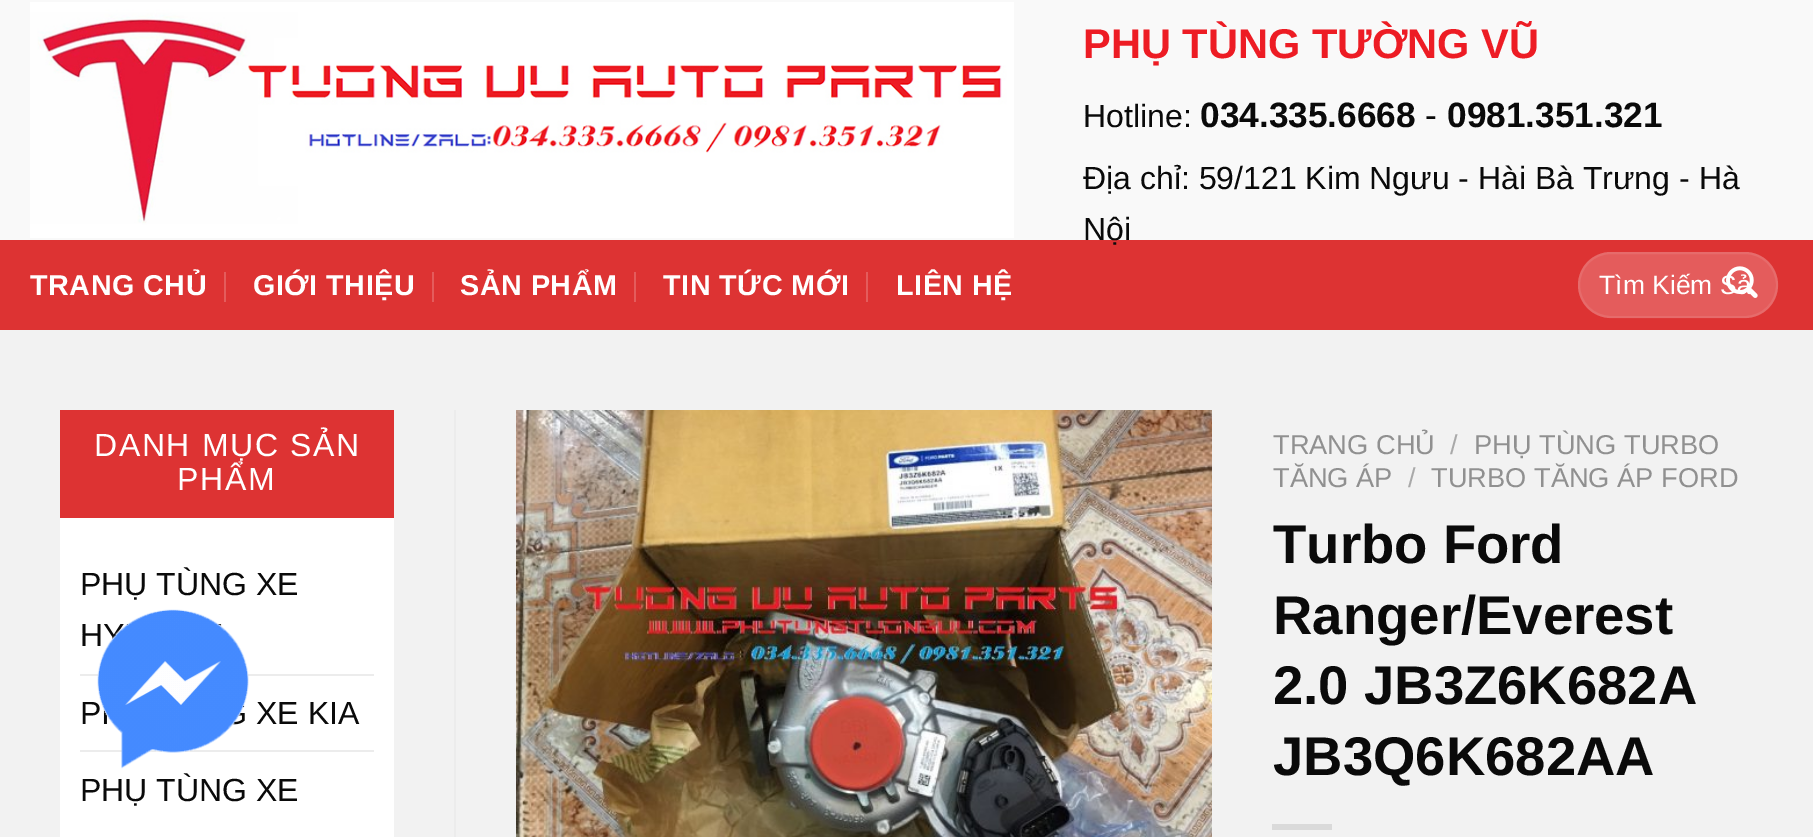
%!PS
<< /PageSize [1813 837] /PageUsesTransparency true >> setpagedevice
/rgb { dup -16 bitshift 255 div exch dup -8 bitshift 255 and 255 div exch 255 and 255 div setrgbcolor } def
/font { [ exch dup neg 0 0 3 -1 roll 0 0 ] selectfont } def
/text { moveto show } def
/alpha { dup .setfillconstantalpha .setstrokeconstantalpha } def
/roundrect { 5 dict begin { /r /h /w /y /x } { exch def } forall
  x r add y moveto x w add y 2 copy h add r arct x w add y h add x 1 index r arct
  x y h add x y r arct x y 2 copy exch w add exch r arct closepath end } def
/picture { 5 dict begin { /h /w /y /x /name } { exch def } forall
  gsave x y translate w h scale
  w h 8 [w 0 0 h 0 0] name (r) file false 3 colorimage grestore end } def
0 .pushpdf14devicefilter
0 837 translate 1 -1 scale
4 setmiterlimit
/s1 { /LiberationSans-Bold 41.6 font 16#ED1C24 rgb } def
/s2 { /LiberationSans-Regular 32 font 16#0A0A0A rgb } def
/s3 { /LiberationSans-Bold 35.25 font 16#0A0A0A rgb } def
/s4 { /LiberationSans-Regular 35.25 font 16#0A0A0A rgb } def
/s5 { /LiberationSans-Regular 26.5 font 16#FFFFFF rgb } def
/s6 { /LiberationSans-Regular 27.25 font 16#909090 rgb } def
/s7 { /LiberationSans-Regular 27.25 font 16#A9A9A9 rgb } def
/s8 { /LiberationSans-Bold 54.5 font 16#0A0A0A rgb } def
16#F2F2F2 rgb
0 0 1813 837 rectfill
16#F9F9F9 rgb
0 0 1813 240 rectfill
(pic1.raw) 30 2 984 236 picture
s1
(PHỤ TÙNG TƯỜNG VŨ) 1083 58 text
s2
(Hotline:) 1083 127 text
s3
(034.335.6668) 1200 127 text
s4
(-) 1425 127 text
s3
(0981.351.321) 1447 127 text
s2
(Địa chỉ: 59/121 Kim Ngưu - Hài Bà Trưng - Hà) 1083 189 text
16#DD3333 rgb
0 240 1813 90 rectfill
s2
(Nội) 1083 240 text
/LiberationSans-Bold 28.75 font
16#FFFFFF rgb
30 295 moveto 0.5 0 (TRANG CHỦ) ashow
16#E45C5C rgb
224 272 2 30 rectfill
16#FFFFFF rgb
253 295 moveto 0.5 0 (GIỚI THIỆU) ashow
16#E45C5C rgb
432 272 2 30 rectfill
16#FFFFFF rgb
460 295 moveto 0.5 0 (SẢN PHẨM) ashow
16#E45C5C rgb
634 272 2 30 rectfill
16#FFFFFF rgb
663 295 moveto 0.5 0 (TIN TỨC MỚI) ashow
16#E45C5C rgb
866 272 2 30 rectfill
16#FFFFFF rgb
896 295 moveto 0.5 0 (LIÊN HỆ) ashow
16#E45C5C rgb
1578 252 200 66 33 roundrect fill
0.09 alpha
16#FFFFFF rgb
2 setlinewidth
1579 253 198 64 32 roundrect stroke
1 alpha
s5
(Tìm Kiếm Sả) 1599 294 text
(pic2.raw) 1726 266 32 32 picture
60 518 334 319 rectfill
16#DD3333 rgb
60 410 334 108 rectfill
/LiberationSans-Regular 32 font
16#FFFFFF rgb
94 456 moveto 1.6 0 (DANH MỤC SẢN) ashow
177 490 moveto 1.6 0 (PHẨM) ashow
s2
(PHỤ TÙNG XE) 80 595 text
(HY) 80 646 text
16#ECECEC rgb
80 674 294 2 rectfill
s2
(P) 80 724 text
(XE KIA) 256 724 text
16#ECECEC rgb
80 750 294 2 rectfill
s2
(PHỤ TÙNG XE) 80 801 text
16#ECECEC rgb
454 410 2 427 rectfill
(pic3.raw) 516 410 696 427 picture
s6
(TRANG CHỦ) 1273 454 text
s7
(/) 1450 454 text
s6
(PHỤ TÙNG TURBO) 1474 454 text
(TĂNG ÁP) 1273 487 text
s7
(/) 1408 487 text
s6
(TURBO TĂNG ÁP FORD) 1431 487 text
s8
(Turbo Ford) 1273 563 text
(Ranger/Everest) 1273 634 text
(2.0 JB3Z6K682A) 1273 704 text
(JB3Q6K682AA) 1273 775 text
16#DADADA rgb
1272 824 60 6 rectfill
(pic4.raw) 97 609 152 160 picture
.poppdf14devicefilter showpage
